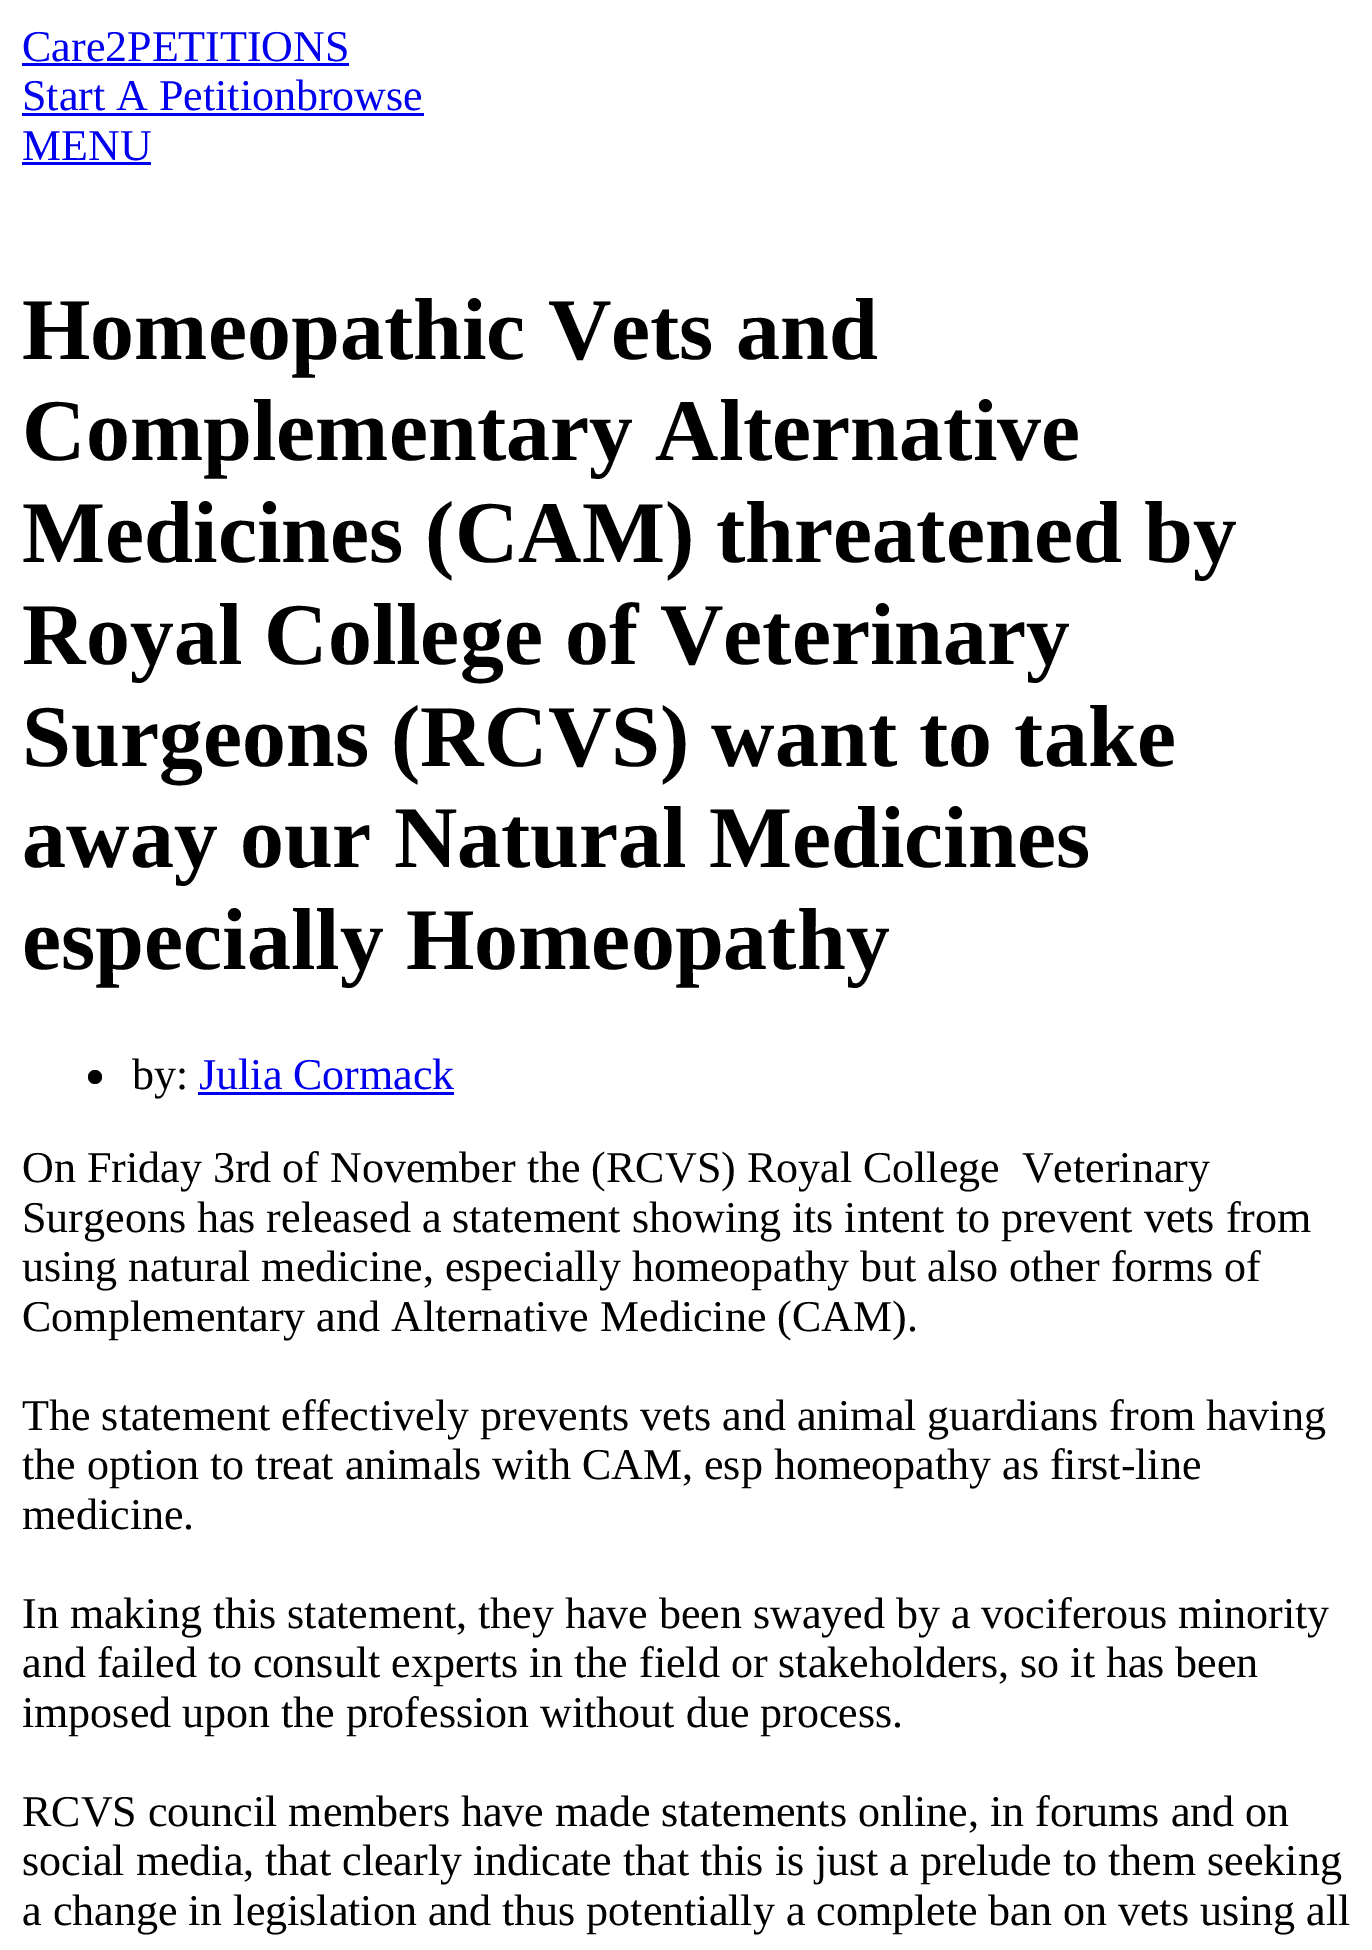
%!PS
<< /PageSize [1372 1950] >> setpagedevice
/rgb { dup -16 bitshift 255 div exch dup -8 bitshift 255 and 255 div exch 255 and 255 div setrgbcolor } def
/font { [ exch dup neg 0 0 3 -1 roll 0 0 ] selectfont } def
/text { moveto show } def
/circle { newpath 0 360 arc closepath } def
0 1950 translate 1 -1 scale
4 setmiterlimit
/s1 { /LiberationSerif-Regular 44 font 16#0000EE rgb } def
/s2 { /LiberationSerif-Bold 88 font 16#000000 rgb } def
/s3 { /LiberationSerif-Regular 44 font 16#000000 rgb } def
16#FFFFFF rgb
0 0 1372 1950 rectfill
s1
(Care2PETITIONS) 22 61 text
22 63 327 3 rectfill
(Start A Petitionbrowse) 22 110 text
22 113 402 3 rectfill
(MENU) 22 160 text
22 162 129 3 rectfill
s2
(Homeopathic Vets and) 22 359 text
(Complementary Alternative) 22 460 text
(Medicines \(CAM\) threatened by) 22 562 text
(Royal College of Veterinary) 22 664 text
(Surgeons \(RCVS\) want to take) 22 766 text
(away our Natural Medicines) 22 867 text
(especially Homeopathy) 22 969 text
95 1077 7 circle fill
s3
(by:) 132 1089 text
s1
(Julia Cormack) 199 1089 text
198 1092 256 3 rectfill
s3
(On Friday 3rd of November the \(RCVS\) Royal College  Veterinary) 22 1182 text
(Surgeons has released a statement showing its intent to prevent vets from) 22 1232 text
(using natural medicine, especially homeopathy but also other forms of) 22 1281 text
(Complementary and Alternative Medicine \(CAM\).) 22 1331 text
(The statement effectively prevents vets and animal guardians from having) 22 1430 text
(the option to treat animals with CAM, esp homeopathy as first-line) 22 1479 text
(medicine.) 22 1529 text
(In making this statement, they have been swayed by a vociferous minority) 22 1628 text
(and failed to consult experts in the field or stakeholders, so it has been) 22 1677 text
(imposed upon the profession without due process.) 22 1727 text
(RCVS council members have made statements online, in forums and on) 22 1826 text
(social media, that clearly indicate that this is just a prelude to them seeking) 22 1875 text
(a change in legislation and thus potentially a complete ban on vets using all) 22 1925 text
showpage
